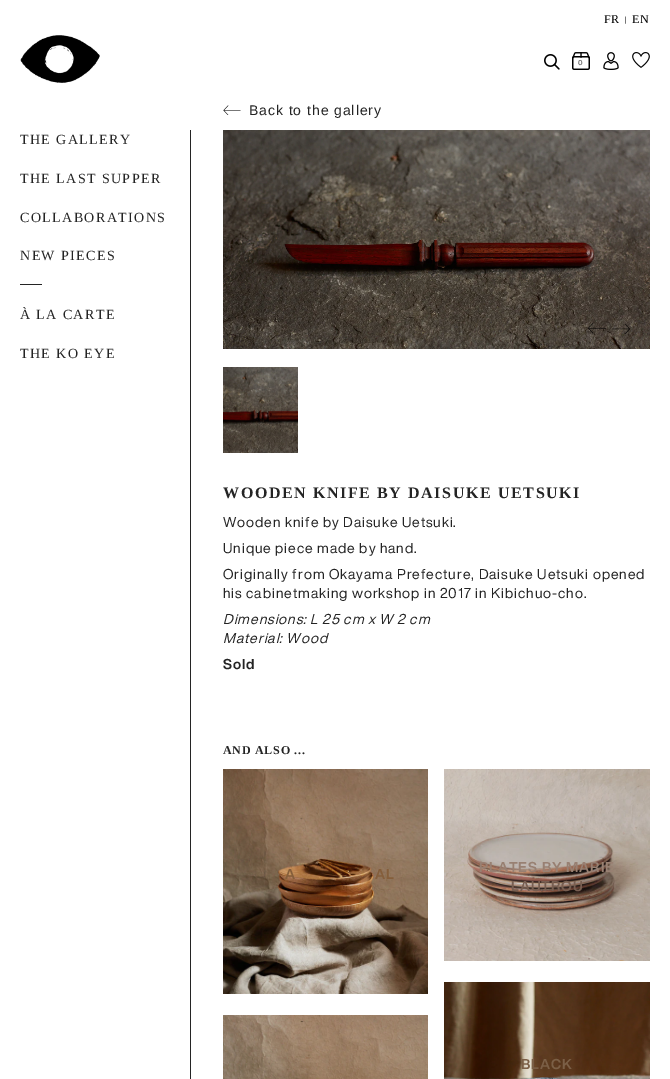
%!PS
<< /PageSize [670 1079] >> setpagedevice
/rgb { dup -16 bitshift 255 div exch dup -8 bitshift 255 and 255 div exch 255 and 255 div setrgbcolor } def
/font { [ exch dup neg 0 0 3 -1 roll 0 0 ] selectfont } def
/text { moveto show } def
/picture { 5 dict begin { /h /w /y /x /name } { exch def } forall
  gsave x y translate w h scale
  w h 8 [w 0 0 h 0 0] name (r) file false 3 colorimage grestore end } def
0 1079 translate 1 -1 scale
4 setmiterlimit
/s1 { /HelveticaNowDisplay-Bold 7 font 16#707070 rgb } def
16#FFFFFF rgb
0 0 670 1079 rectfill
/LiberationSerif-Regular 12 font
16#000000 rgb
604 23 moveto 0.75 0 (FR) ashow
/LiberationSerif-Regular 8 font
625 22 moveto 0.93 0 (|) ashow
/LiberationSerif-Regular 12 font
632 23 moveto 0.75 0 (EN) ashow
(pic1.raw) 20 35 80 48 picture
(pic2.raw) 544 54 16 16 picture
(pic3.raw) 572 52 18 18 picture
s1
(0) 578 65 text
(pic4.raw) 603 52 16 18 picture
(pic5.raw) 632 52 18 16 picture
16#242424 rgb
190 130 1 949 rectfill
/LiberationSerif-Regular 14 font
20 144 moveto 1.4 0 (THE GALLERY) ashow
20 183 moveto 1.4 0 (THE LAST SUPPER) ashow
20 222 moveto 1.4 0 (COLLABORATIONS) ashow
20 260 moveto 1.4 0 (NEW PIECES) ashow
20 284 22 1 rectfill
20 319 moveto 1.4 0 (À LA CARTE) ashow
20 358 moveto 1.4 0 (THE KO EYE) ashow
(pic6.raw) 223 105 18 10 picture
/LiberationSans-Regular 14 font
249 115 moveto 0.93 0 (Back to the gallery) ashow
(pic7.raw) 223 130 427 219 picture
(pic8.raw) 588 323 18 11 picture
(pic9.raw) 612 323 18 11 picture
(pic10.raw) 223 367 75 86 picture
/LiberationSerif-Bold 16 font
223 498 moveto 1.6 0 (WOODEN KNIFE BY DAISUKE UETSUKI) ashow
/HelveticaNowDisplay-Regular 14 font
223 527 moveto 0.93 0 (Wooden knife by Daisuke Uetsuki.) ashow
223 553 moveto 0.93 0 (Unique piece made by hand.) ashow
223 579 moveto 0.93 0 (Originally from Okayama Prefecture, Daisuke Uetsuki opened) ashow
223 598 moveto 0.93 0 (his cabinetmaking workshop in 2017 in Kibichuo-cho.) ashow
/HelveticaNowDisplay-Italic 14 font
223 624 moveto 0.93 0 (Dimensions: L 25 cm x W 2 cm) ashow
223 643 moveto 0.93 0 (Material: Wood) ashow
/HelveticaNowDisplay-Bold 14 font
223 669 moveto 0.93 0 (Sold) ashow
/LiberationSerif-Bold 12 font
223 754 moveto 0.75 0 (AND ALSO ...) ashow
(pic11.raw) 223 769 205 225 picture
/HelveticaNowDisplay-Bold 14 font
16#855E3B rgb
285 879 moveto 0.93 0 (A) ashow
375 879 moveto 0.93 0 (AL) ashow
(pic12.raw) 444 769 206 192 picture
16#988072 rgb
479 872 moveto 0.93 0 (PLATES BY MARIE) ashow
16#775E51 rgb
511 891 moveto 0.93 0 (LAUTROU) ashow
(pic13.raw) 223 1015 205 64 picture
(pic14.raw) 444 982 206 97 picture
16#7B5F46 rgb
521 1069 moveto 0.93 0 (BLACK) ashow
showpage
